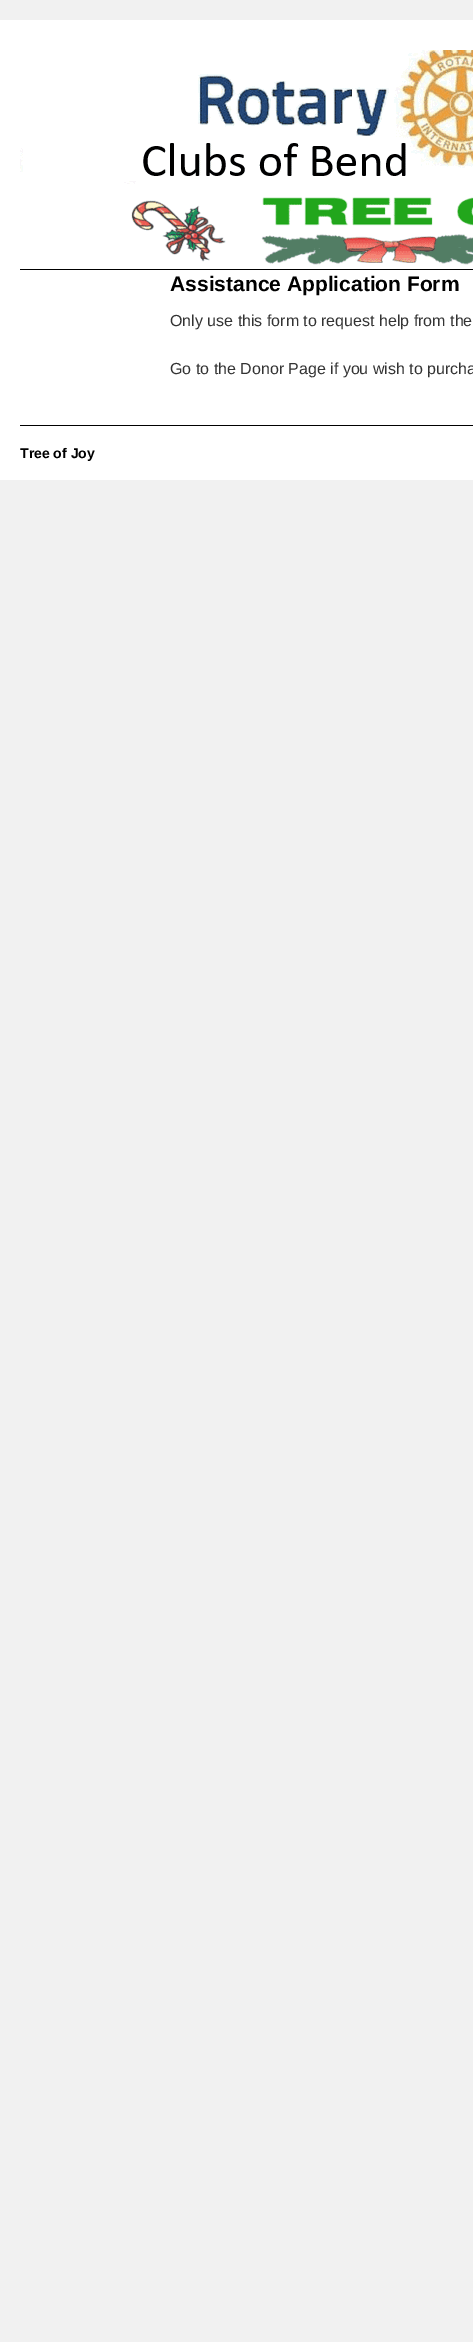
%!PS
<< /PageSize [473 2342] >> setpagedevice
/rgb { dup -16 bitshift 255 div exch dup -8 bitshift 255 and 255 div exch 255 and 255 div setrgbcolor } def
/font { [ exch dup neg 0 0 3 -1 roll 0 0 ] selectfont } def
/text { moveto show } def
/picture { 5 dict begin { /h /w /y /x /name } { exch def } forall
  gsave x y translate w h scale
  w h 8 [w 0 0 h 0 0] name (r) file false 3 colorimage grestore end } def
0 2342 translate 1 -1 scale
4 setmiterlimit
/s1 { /LiberationSans-Bold 21 font 16#000000 rgb } def
/s2 { /LiberationSans-Regular 16 font 16#333333 rgb } def
/s3 { /LiberationSans-Bold 14 font 16#000000 rgb } def
16#F1F1F1 rgb
0 0 473 2342 rectfill
16#FFFFFF rgb
0 20 473 460 rectfill
16#000000 rgb
20 269 453 1 rectfill
(pic1.raw) 20 50 453 215 picture
s1
(Assistance Application Form) 170 291 text
s2
(Only use this form to request help from the) 170 326 text
(Go to the Donor Page if you wish to purcha) 170 374 text
16#000000 rgb
20 425 453 1 rectfill
s3
(Tree of Joy) 20 458 text
showpage
